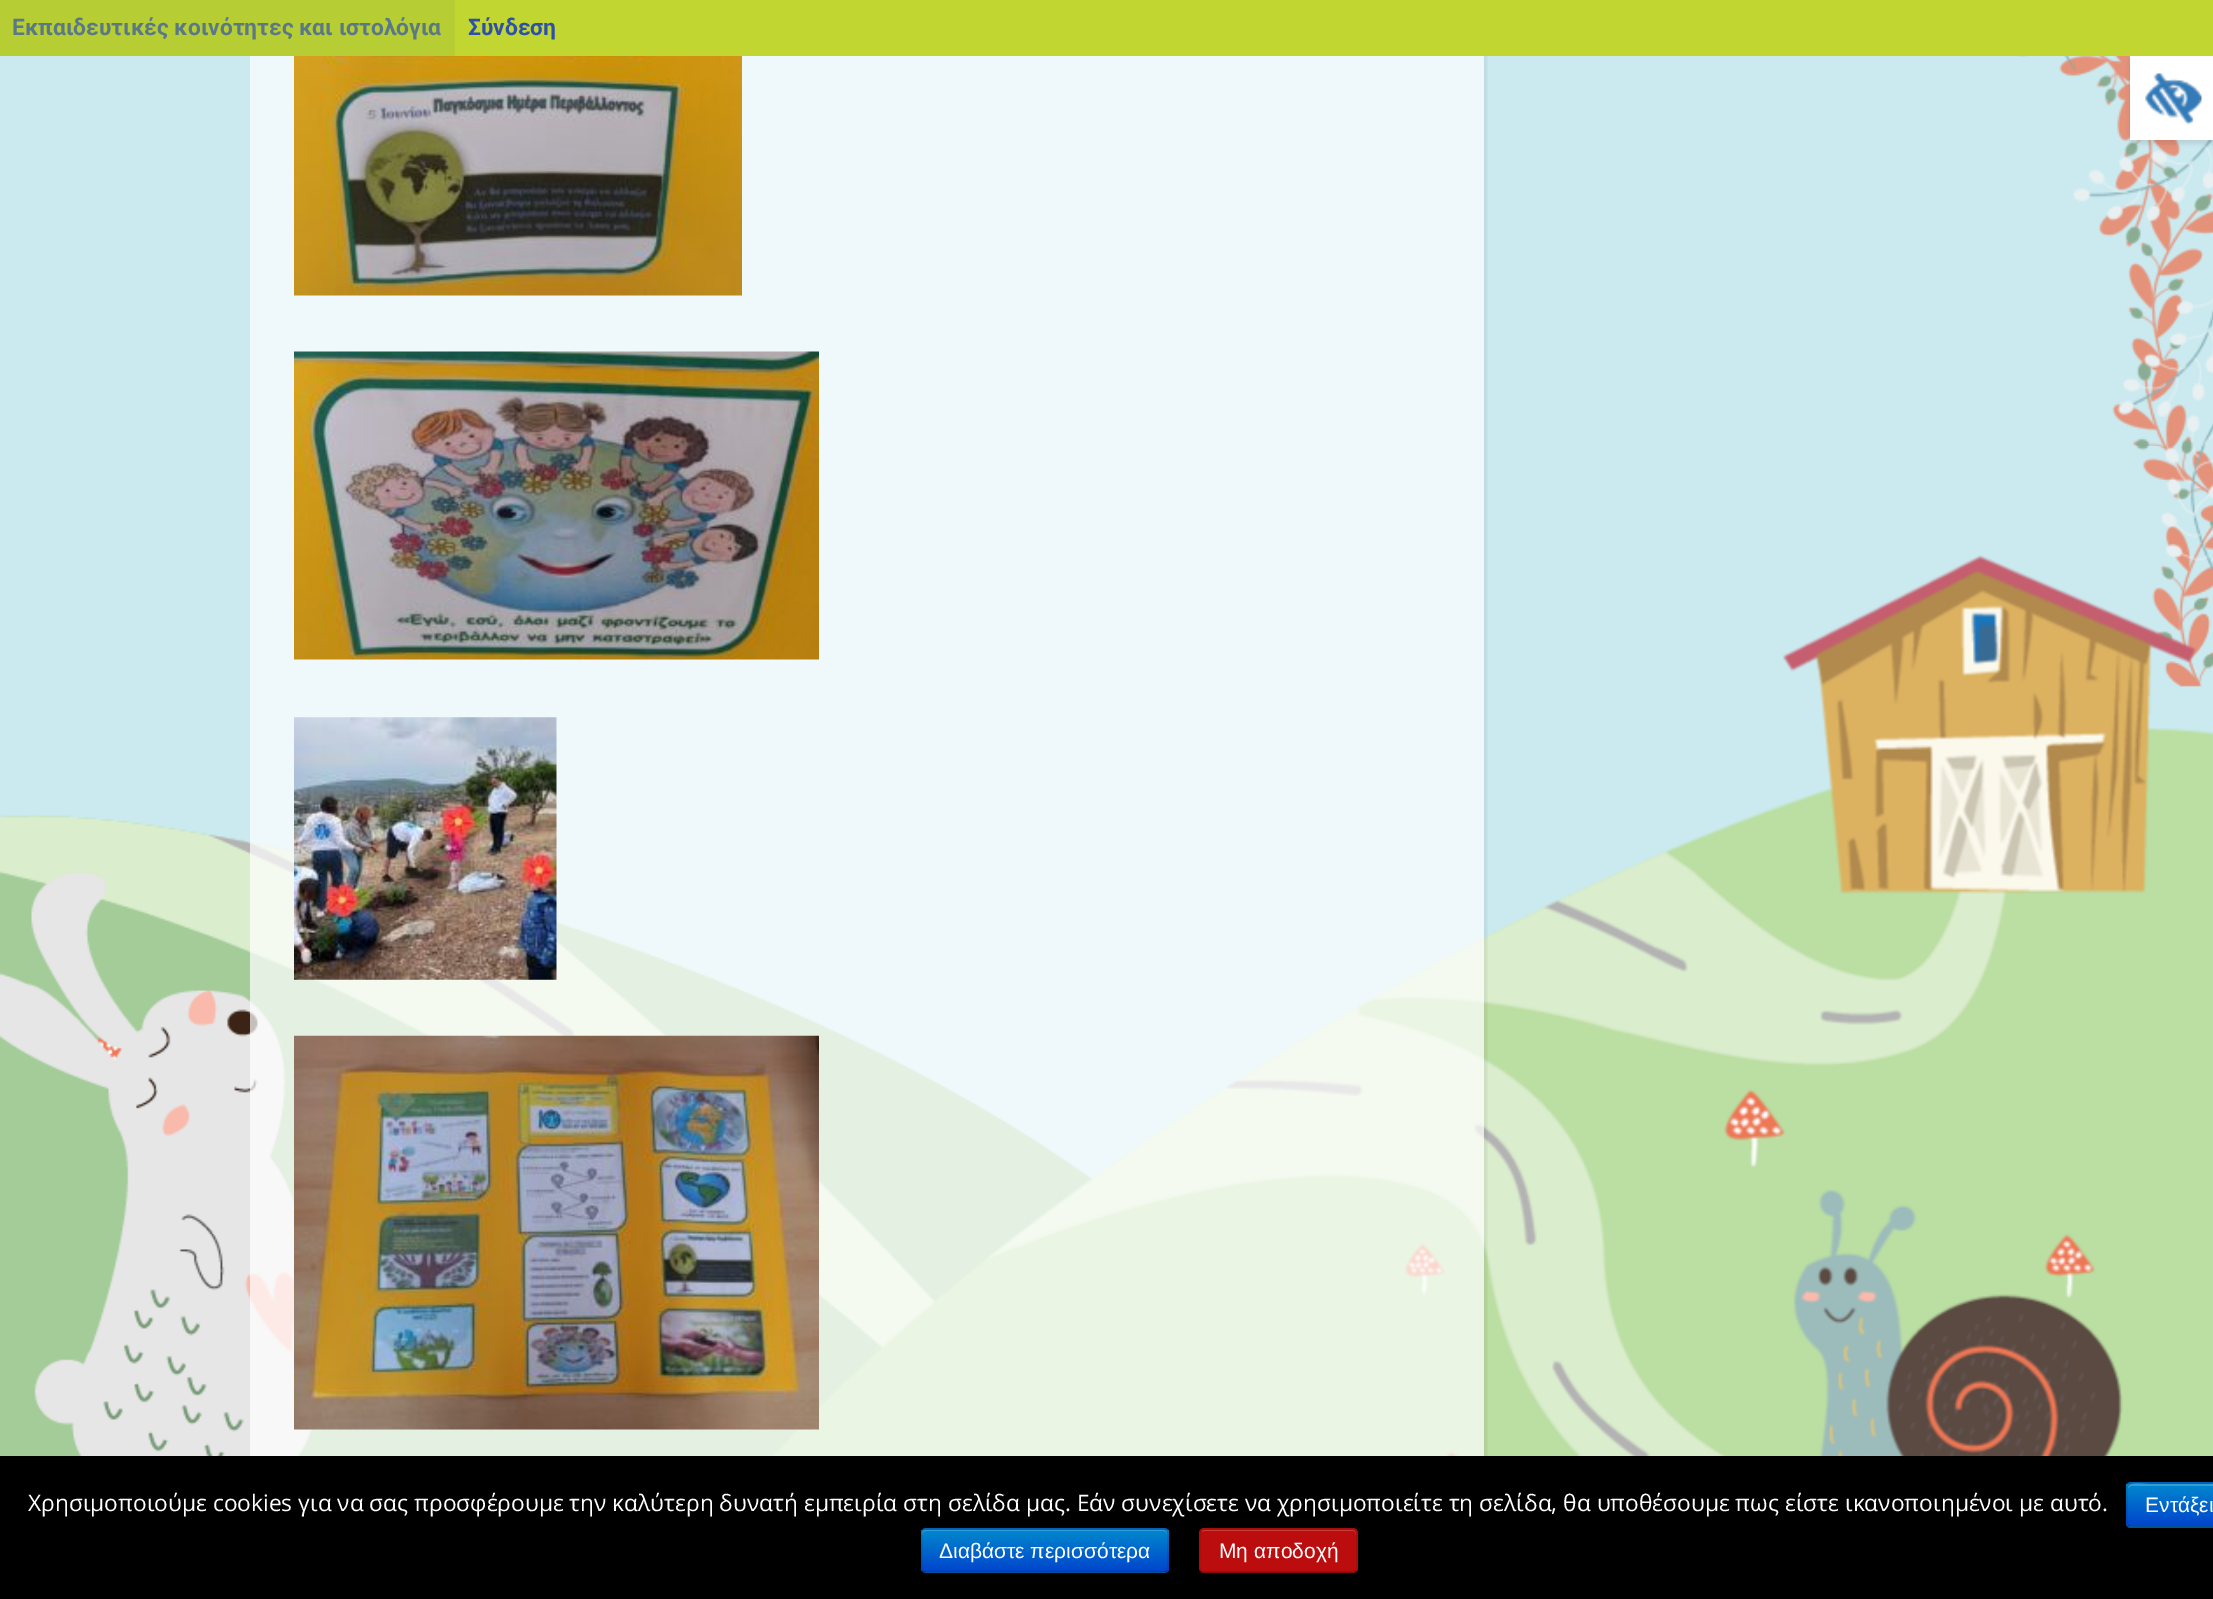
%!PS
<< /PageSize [2213 1599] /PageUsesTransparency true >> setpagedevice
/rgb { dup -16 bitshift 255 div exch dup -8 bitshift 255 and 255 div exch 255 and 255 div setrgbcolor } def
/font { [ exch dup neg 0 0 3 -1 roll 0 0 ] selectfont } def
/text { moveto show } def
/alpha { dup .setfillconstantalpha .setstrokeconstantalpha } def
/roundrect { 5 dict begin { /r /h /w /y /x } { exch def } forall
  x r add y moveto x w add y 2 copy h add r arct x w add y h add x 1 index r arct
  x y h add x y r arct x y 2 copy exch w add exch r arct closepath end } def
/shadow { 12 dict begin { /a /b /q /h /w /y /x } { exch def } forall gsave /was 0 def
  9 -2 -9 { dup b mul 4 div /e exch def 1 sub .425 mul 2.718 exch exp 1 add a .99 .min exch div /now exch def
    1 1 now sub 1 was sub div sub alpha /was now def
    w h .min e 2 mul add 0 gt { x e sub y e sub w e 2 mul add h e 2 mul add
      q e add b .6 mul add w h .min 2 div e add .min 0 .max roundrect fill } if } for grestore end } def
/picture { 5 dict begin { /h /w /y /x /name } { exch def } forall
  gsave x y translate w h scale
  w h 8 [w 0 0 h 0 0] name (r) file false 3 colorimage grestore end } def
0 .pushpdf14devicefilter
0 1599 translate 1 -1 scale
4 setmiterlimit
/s1 { /Roboto-Bold 22.75 font 16#5A7885 rgb } def
/s2 { /Roboto-Bold 22.75 font 16#2E50AA rgb } def
/s3 { /OpenSans-Regular 22.75 font 16#FFFFFF rgb } def
/s4 { /LiberationSans-Regular 21 font 16#FFFFFF rgb } def
16#CAEAF0 rgb
0 0 2213 1599 rectfill
(pic7.raw) 0 815 1096 641 picture
(pic6.raw) 2019 56 194 631 picture
(pic5.raw) 2018 56 195 631 picture
(pic8.raw) 771 555 1442 901 picture
gsave
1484 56 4 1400 rectclip
16#000000 rgb
252 -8 1234 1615 0 2.5 0.08 shadow
grestore
0.7 alpha
16#FFFFFF rgb
250 56 1234 1400 rectfill
1 alpha
(pic1.raw) 294 56 448 240 picture
(pic2.raw) 294 351 525 309 picture
(pic3.raw) 294 717 263 263 picture
(pic4.raw) 294 1035 525 395 picture
16#C1D630 rgb
455 0 1758 56 rectfill
16#B6CD34 rgb
0 0 455 56 rectfill
s1
(Εκπαιδευτικές κοινότητες και ιστολόγια) 12 35 text
s2
(Σύνδεση) 468 35 text
16#000000 rgb
2130 60 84 84 0 2 0.1 shadow
16#FFFFFF rgb
2130 56 83 84 rectfill
(pic9.raw) 2145 73 57 52 picture
16#000000 rgb
0 1456 2213 143 rectfill
s3
(Χρησιμοποιούμε cookies για να σας προσφέρουμε την καλύτερη δυνατή εμπειρία στη σελίδα μας. Εάν συνεχίσετε να χρησιμοποιείτε τη σελίδα, θα υποθέσουμε πως είστε ικανοποιημένοι με αυτό.) 28 1511 text
16#006DCC rgb
2126 1482 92 46 5 roundrect fill
gsave
2126 1482 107 46 5 roundrect clip newpath
gsave 2126 1484 moveto 2213 1484 lineto 2213 1526 lineto 2126 1526 lineto closepath clip newpath
<< /ShadingType 2 /ColorSpace /DeviceRGB /Coords [2180 1484 2180 1526] /Extend [true true] /Function << /FunctionType 2 /Domain [0 1] /C0 [0 0.533 0.8] /C1 [0 0.267 0.8] /N 1 >> >> shfill grestore
grestore
0.2 alpha
16#FFFFFF rgb
2132 1486 moveto 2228 1486 lineto 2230 1486 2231 1487 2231 1489 curveto 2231 1480 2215 1484 2211 1484 curveto 2148 1484 lineto 2144 1484 2128 1480 2128 1489 curveto 2128 1487 2130 1486 2132 1486 curveto closepath fill
0.25 alpha
16#000000 rgb
1.8 setlinewidth
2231 1525.5 moveto 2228 1527 lineto 2131 1527 lineto 2128.5 1525.5 lineto stroke
0.1 alpha
2128.5 1525.5 moveto 2126 1523.5 2127 1519 2127 1516.5 curveto 2127 1505 lineto 2127 1480 2122.5 1483 2147.5 1483 curveto 2211.5 1483 lineto 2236.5 1483 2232 1480 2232 1505 curveto 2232 1516.5 lineto 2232 1519 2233 1523.5 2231 1525.5 curveto stroke
1 alpha
s4
(Εντάξει) 2145 1512 text
16#006DCC rgb
921 1528 248 45 5 roundrect fill
gsave
921 1528 248 45 5 roundrect clip newpath
gsave 921 1530 moveto 1169 1530 lineto 1169 1572 lineto 921 1572 lineto closepath clip newpath
<< /ShadingType 2 /ColorSpace /DeviceRGB /Coords [1045 1530 1045 1572] /Extend [true true] /Function << /FunctionType 2 /Domain [0 1] /C0 [0 0.533 0.8] /C1 [0 0.267 0.8] /N 1 >> >> shfill grestore
grestore
0.2 alpha
16#FFFFFF rgb
926 1531 moveto 1164 1531 lineto 1166 1531 1167 1533 1167 1535 curveto 1167 1534 lineto 1167 1532 1165 1530 1163 1530 curveto 926 1530 lineto 924 1530 922 1532 922 1534 curveto 922 1535 lineto 922 1533 924 1531 926 1531 curveto closepath fill
0.25 alpha
16#000000 rgb
1167 1571 moveto 1166 1572 1165 1572.5 1164 1572.5 curveto 926 1572.5 lineto 924.5 1572.5 923.5 1572 922.5 1571 curveto stroke
0.1 alpha
922.5 1571 moveto 922 1570.5 921.5 1569 921.5 1568 curveto 921.5 1533 lineto 921.5 1532 922 1530.5 922.5 1530 curveto 923.5 1529 924.5 1528.5 926 1528.5 curveto 1164 1528.5 lineto 1165 1528.5 1166 1529 1167 1530 curveto 1167.5 1530.5 1168 1532 1168 1533 curveto 1168 1568 lineto 1168 1569 1167.5 1570.5 1167 1571 curveto stroke
1 alpha
s4
(Διαβάστε περισσότερα) 939 1558 text
16#BB0D0D rgb
1199 1528 159 45 5 roundrect fill
16#C93D3D rgb
1204 1531 moveto 1353 1531 lineto 1355 1531 1356 1533 1356 1535 curveto 1356 1534 lineto 1356 1532 1354 1530 1352 1530 curveto 1205 1530 lineto 1204 1530 1202 1531 1202 1532 curveto closepath fill
0.25 alpha
16#000000 rgb
1356 1571 moveto 1355 1572 1354 1572.5 1353 1572.5 curveto 1204 1572.5 lineto 1203 1572.5 1201.5 1572 1201 1571 curveto stroke
0.1 alpha
1201 1571 moveto 1198 1568.5 1199.5 1559.5 1199.5 1556.5 curveto 1199.5 1539 lineto 1199.5 1535.5 1198.5 1528.5 1204 1528.5 curveto 1353 1528.5 lineto 1358 1528.5 1357 1535.5 1357 1539 curveto 1357 1556.5 lineto 1357 1559.5 1358.5 1568.5 1356 1571 curveto stroke
1 alpha
s4
(Μη αποδοχή) 1219 1558 text
.poppdf14devicefilter showpage
